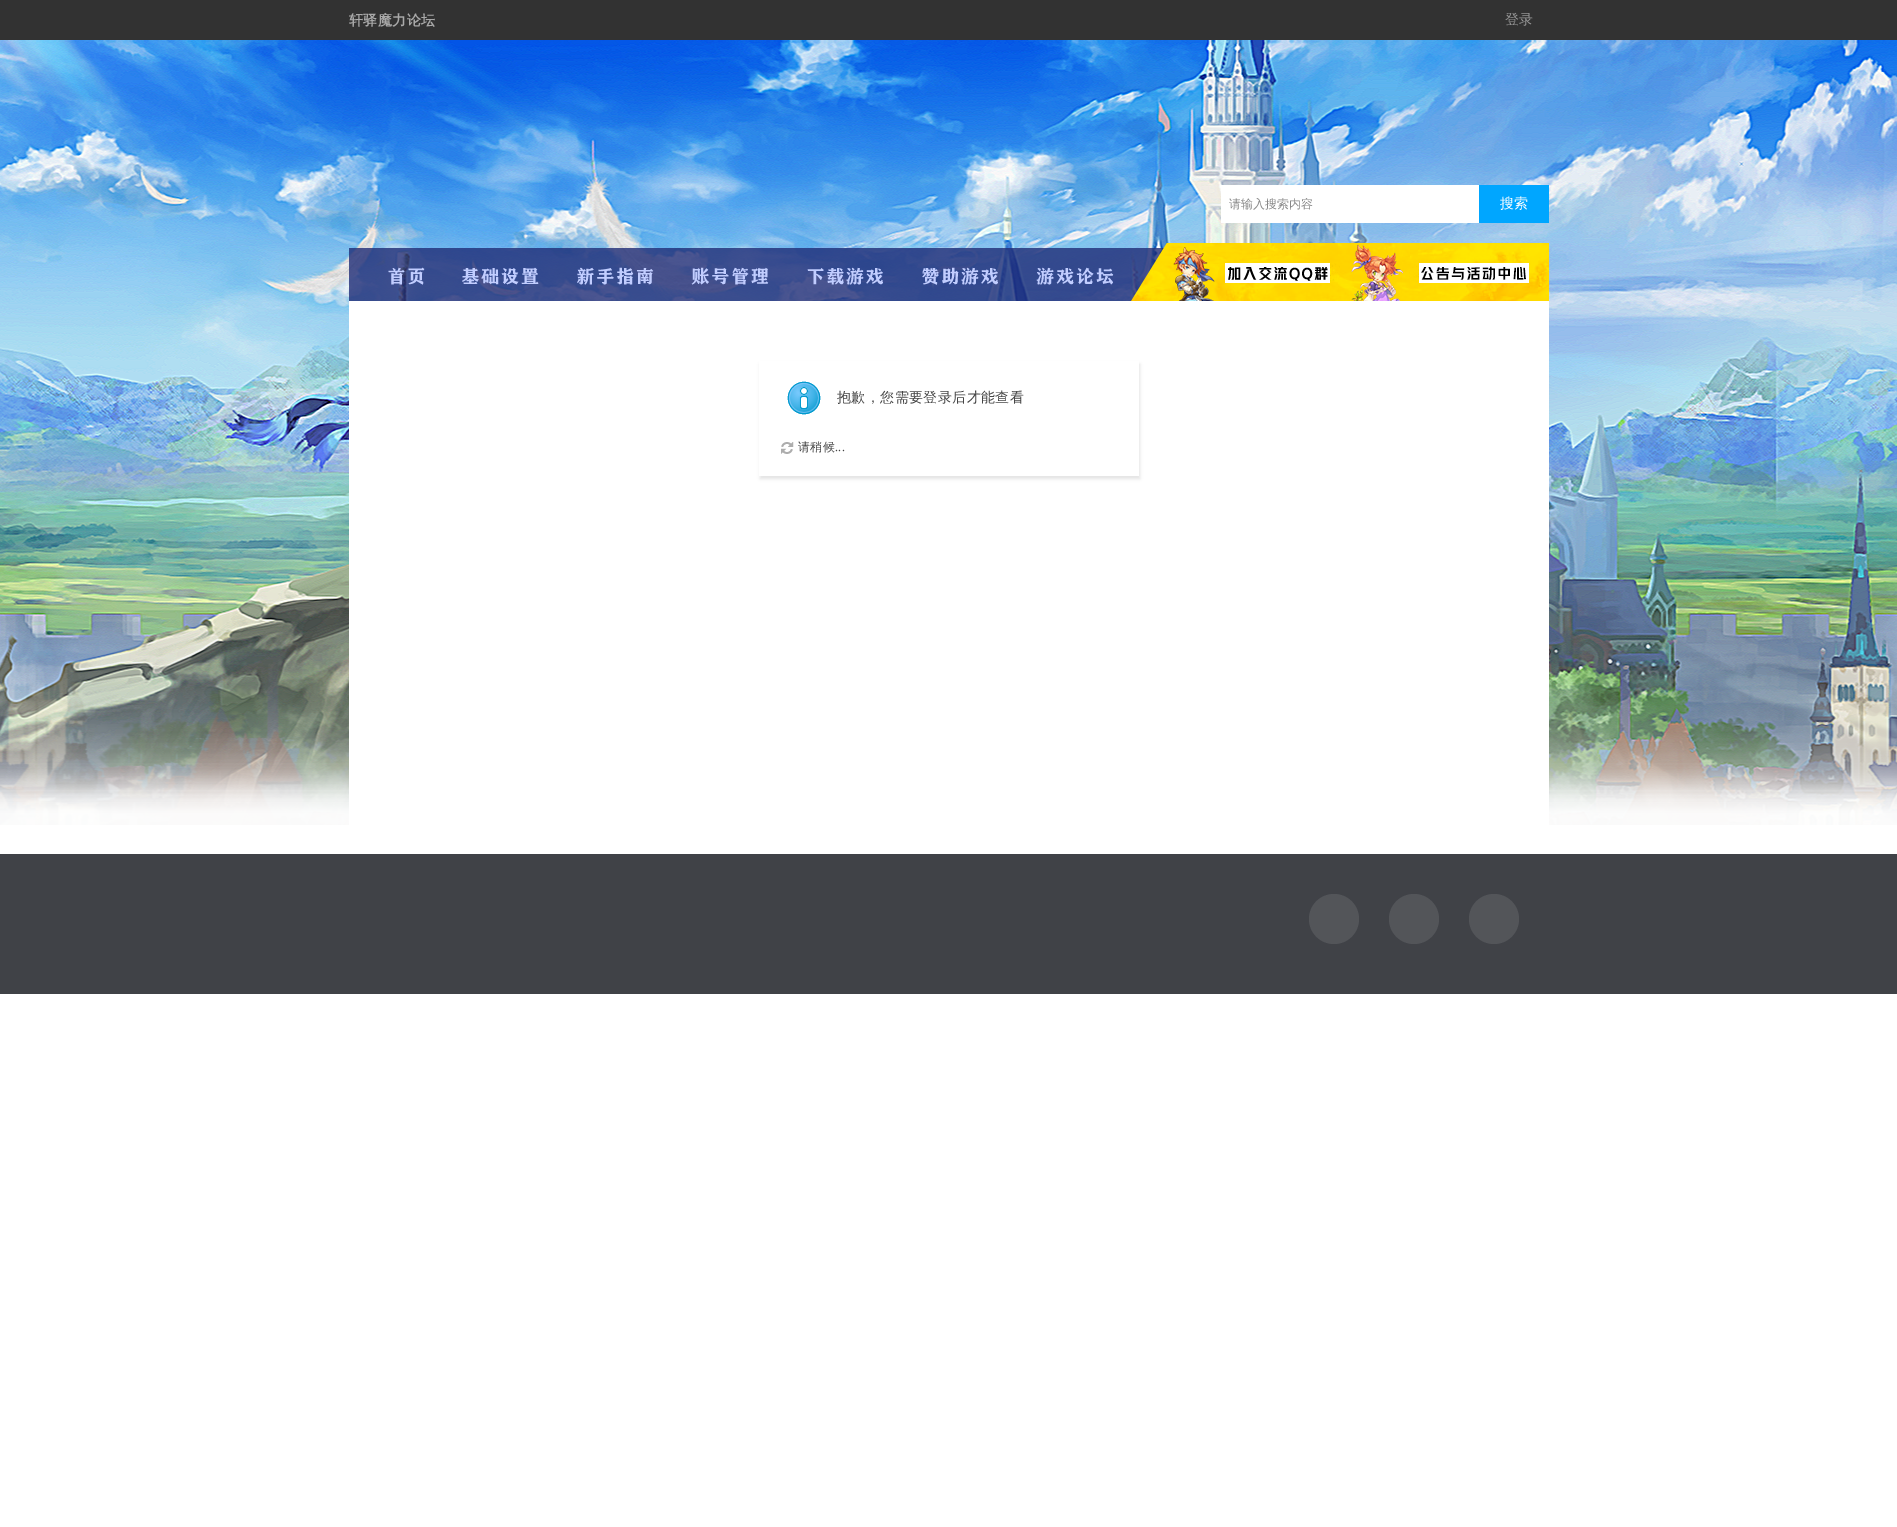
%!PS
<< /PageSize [1897 1527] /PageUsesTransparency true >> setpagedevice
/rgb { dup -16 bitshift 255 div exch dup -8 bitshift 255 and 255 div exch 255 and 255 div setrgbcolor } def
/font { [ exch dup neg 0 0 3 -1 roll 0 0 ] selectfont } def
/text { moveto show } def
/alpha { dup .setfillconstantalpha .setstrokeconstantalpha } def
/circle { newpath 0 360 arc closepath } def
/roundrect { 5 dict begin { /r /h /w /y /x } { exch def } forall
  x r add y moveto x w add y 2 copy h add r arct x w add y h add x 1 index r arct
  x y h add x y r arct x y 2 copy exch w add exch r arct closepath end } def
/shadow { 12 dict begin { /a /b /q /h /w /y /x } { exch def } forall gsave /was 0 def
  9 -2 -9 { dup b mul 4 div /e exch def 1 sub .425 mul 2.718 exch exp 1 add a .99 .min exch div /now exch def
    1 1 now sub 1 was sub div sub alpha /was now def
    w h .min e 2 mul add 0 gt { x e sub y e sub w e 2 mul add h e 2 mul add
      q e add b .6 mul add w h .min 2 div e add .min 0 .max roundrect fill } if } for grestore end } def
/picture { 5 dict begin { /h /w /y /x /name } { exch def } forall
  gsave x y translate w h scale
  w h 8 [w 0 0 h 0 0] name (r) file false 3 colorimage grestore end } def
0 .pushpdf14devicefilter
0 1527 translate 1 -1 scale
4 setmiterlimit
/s1 { /WenQuanYiZenHei-Medium 12 font 16#888888 rgb } def
/s2 { /WenQuanYiZenHei-Medium 14 font 16#FFFFFF rgb } def
16#FFFFFF rgb
0 0 1897 1527 rectfill
16#323232 rgb
0 0 1897 40 rectfill
gsave
349 0 101 40 rectclip
/WenQuanYiZenHei-Bold 14 font
16#A9A9A9 rgb
349 25 moveto 0.4 0 (轩驿魔力论坛) ashow
grestore
/WenQuanYiZenHei-Medium 14 font
16#969696 rgb
1505 24 moveto 0.4 0 (登录) ashow
(pic1.raw) 0 40 1897 785 picture
16#FFFFFF rgb
1221 185 258 38 rectfill
s1
(请输入搜索内容) 1229 208 text
16#00A6FF rgb
1479 185 70 38 rectfill
s2
(搜索) 1500 208 text
0.8 alpha
16#1F2C76 rgb
349 248 815 53 rectfill
1 alpha
(pic2.raw) 388 267 37 18 picture
(pic3.raw) 462 267 77 18 picture
(pic4.raw) 577 267 77 18 picture
(pic5.raw) 691 267 78 18 picture
(pic6.raw) 807 267 76 18 picture
(pic7.raw) 922 267 76 18 picture
(pic8.raw) 1036 267 78 18 picture
(pic9.raw) 1131 243 213 58 picture
(pic10.raw) 1344 243 205 58 picture
16#FFFFFF rgb
349 301 1200 524 rectfill
gsave
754 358 moveto 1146 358 lineto 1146 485 lineto 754 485 lineto closepath 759 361 moveto 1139 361 lineto 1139 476 lineto 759 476 lineto closepath eoclip newpath
16#000000 rgb
760 364 380 115 0 1.5 0.1 shadow
grestore
(pic11.raw) 787 381 34 34 picture
16#444444 rgb
837 402 moveto 0.4 0 (抱歉，您需要登录后才能查看) ashow
(pic12.raw) 781 442 13 12 picture
/WenQuanYiZenHei-Medium 12 font
798 451 moveto 0.4 0 (请稍候) ashow
/LiberationSerif-Regular 12 font
835 451 moveto 0.4 0 (...) ashow
16#404247 rgb
0 854 1897 140 rectfill
16#535559 rgb
1334 919 25 circle fill
1414 919 25 circle fill
1494 919 25 circle fill
.poppdf14devicefilter showpage
